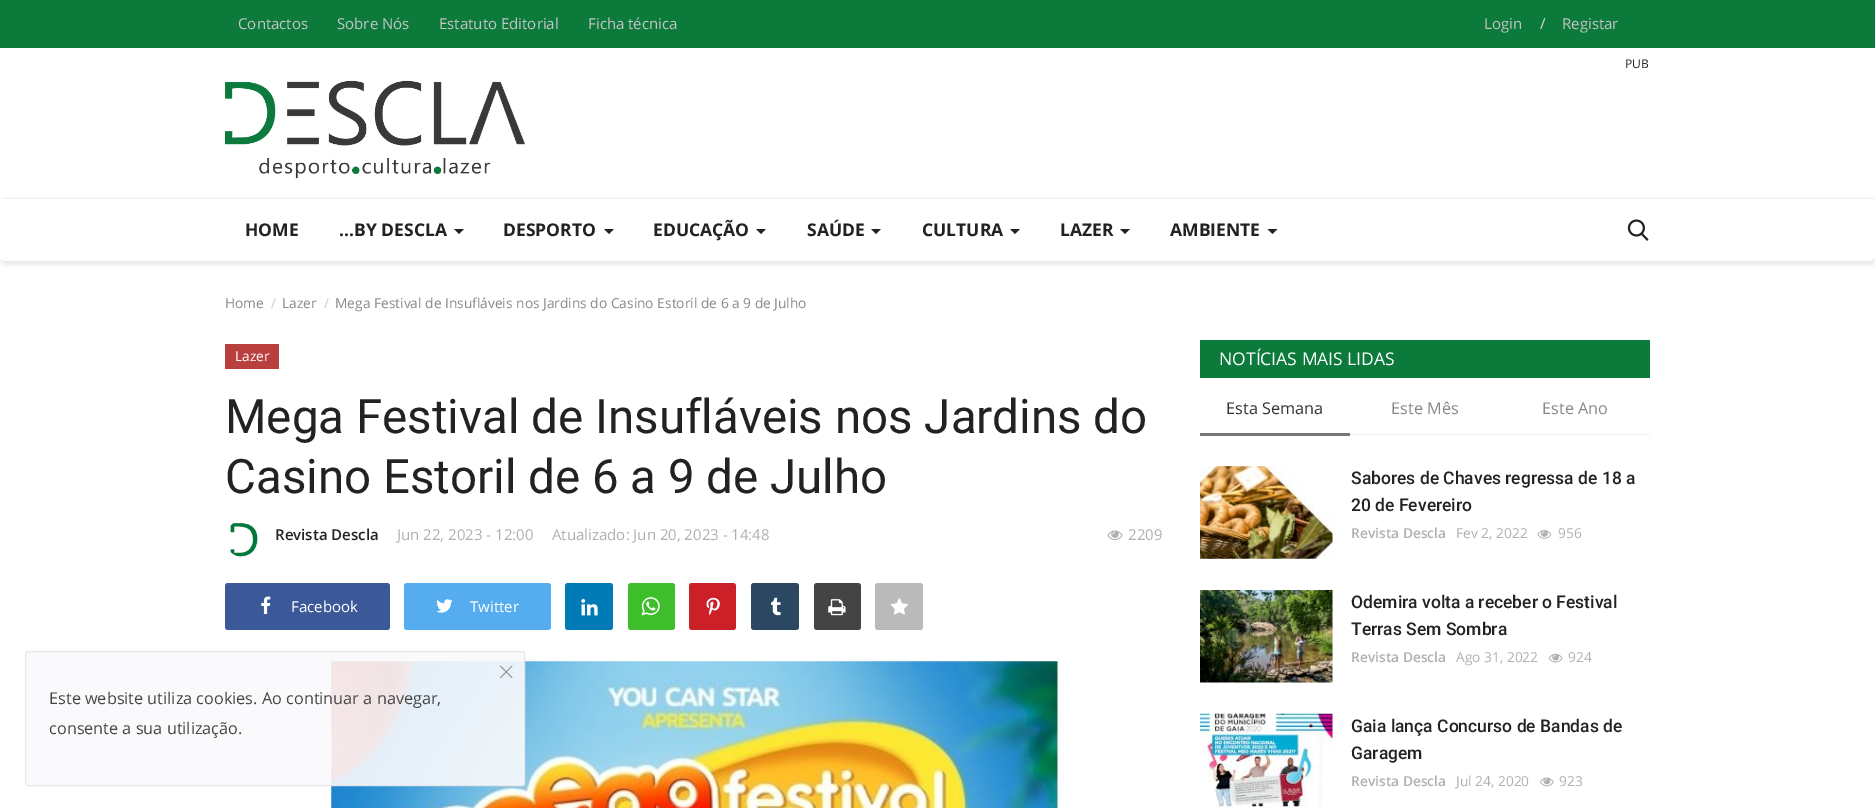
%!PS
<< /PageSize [1875 808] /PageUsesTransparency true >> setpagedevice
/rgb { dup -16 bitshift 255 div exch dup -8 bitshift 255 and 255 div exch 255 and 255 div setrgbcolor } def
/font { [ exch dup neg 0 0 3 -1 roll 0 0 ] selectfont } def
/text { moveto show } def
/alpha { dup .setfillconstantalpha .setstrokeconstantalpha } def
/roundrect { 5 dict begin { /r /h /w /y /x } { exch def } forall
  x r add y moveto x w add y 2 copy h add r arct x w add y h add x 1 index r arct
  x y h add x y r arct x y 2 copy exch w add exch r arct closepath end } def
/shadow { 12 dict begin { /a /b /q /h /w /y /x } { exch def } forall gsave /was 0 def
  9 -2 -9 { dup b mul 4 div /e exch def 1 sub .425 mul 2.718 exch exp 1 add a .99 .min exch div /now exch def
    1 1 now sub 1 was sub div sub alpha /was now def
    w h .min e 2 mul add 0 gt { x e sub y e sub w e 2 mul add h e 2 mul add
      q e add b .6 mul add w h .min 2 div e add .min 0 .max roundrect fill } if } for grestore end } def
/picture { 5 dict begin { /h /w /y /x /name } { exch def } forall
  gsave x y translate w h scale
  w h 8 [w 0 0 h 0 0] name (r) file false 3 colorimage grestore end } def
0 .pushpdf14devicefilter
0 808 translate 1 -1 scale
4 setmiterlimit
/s1 { /OpenSans-Regular 15 font 16#C4C4C4 rgb } def
/s2 { /OpenSans-Regular 15 font 16#DDDDDD rgb } def
/s3 { /OpenSans-Regular 12 font 16#222222 rgb } def
/s4 { /OpenSans-Bold 17.5 font 16#222222 rgb } def
/s5 { /OpenSans-Regular 13.75 font 16#888888 rgb } def
/s6 { /OpenSans-Regular 13.75 font 16#CCCCCC rgb } def
/s7 { /OpenSans-Regular 13.75 font 16#FFFFFF rgb } def
/s8 { /Roboto-Regular 47.5 font 16#222222 rgb } def
/s9 { /OpenSans-SemiBold 15 font 16#222222 rgb } def
/s10 { /OpenSans-Regular 15 font 16#B0B0B0 rgb } def
/s11 { /OpenSans-Regular 15 font 16#FFFFFF rgb } def
/s12 { /OpenSans-Regular 17.5 font 16#FFFFFF rgb } def
/s13 { /OpenSans-Regular 16.25 font 16#333333 rgb } def
/s14 { /OpenSans-Regular 16.25 font 16#888888 rgb } def
/s15 { /Roboto-Medium 17.5 font 16#222222 rgb } def
/s16 { /OpenSans-SemiBold 13.75 font 16#B0B0B0 rgb } def
/s17 { /OpenSans-Regular 13.75 font 16#B0B0B0 rgb } def
/s18 { /OpenSans-Regular 16.25 font 16#474647 rgb } def
16#FFFFFF rgb
0 0 1875 808 rectfill
16#0B7A3B rgb
0 0 1875 48 rectfill
s1
(Contactos) 238 29 text
(Sobre Nós) 337 29 text
(Estatuto Editorial) 439 29 text
(Ficha técnica) 588 29 text
(Login) 1484 29 text
s2
(/) 1540 29 text
s1
(Registar) 1562 29 text
s3
(PUB) 1625 68 text
(pic1.raw) 225 80 300 99 picture
16#000000 rgb
1 200 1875 64 5 2.5 0.1 shadow
16#FFFFFF rgb
0 198 1875 63 5 roundrect fill
16#EEEEEE rgb
3 198 1870 1 rectfill
s4
(HOME) 245 236 text
(...BY DESCLA) 339 236 text
454 229 moveto 464 229 lineto 459 234 lineto closepath fill
(DESPORTO) 503 236 text
604 229 moveto 614 229 lineto 609 234 lineto closepath fill
(EDUCAÇÃO) 653 236 text
756 229 moveto 766 229 lineto 761 234 lineto closepath fill
(SAÚDE) 807 236 text
871 229 moveto 881 229 lineto 876 234 lineto closepath fill
(CULTURA) 922 236 text
1010 229 moveto 1020 229 lineto 1015 234 lineto closepath fill
(LAZER) 1060 236 text
1120 229 moveto 1130 229 lineto 1125 234 lineto closepath fill
(AMBIENTE) 1170 236 text
1267.5 229 moveto 1277.5 229 lineto 1272.5 234 lineto closepath fill
(pic2.raw) 1627 219 22 22 picture
s5
(Home) 225 308 text
s6
(/) 271 308 text
s5
(Lazer) 282 308 text
s6
(/) 324 308 text
s5
(Mega Festival de Insufláveis nos Jardins do Casino Estoril de 6 a 9 de Julho) 335 308 text
16#BA3F3F rgb
225 344 54 25 rectfill
s7
(Lazer) 235 361 text
s8
(Mega Festival de Insufláveis nos Jardins do) 225 433 text
(Casino Estoril de 6 a 9 de Julho) 225 493 text
(pic3.raw) 230 523 28 34 picture
s9
(Revista Descla) 275 540 text
s10
(Jun 22, 2023 - 12:00) 397 540 text
(Atualizado: Jun 20, 2023 - 14:48) 552 540 text
(pic4.raw) 1107 530 16 10 picture
(2209) 1128 540 text
16#3B5998 rgb
225 583 165 47 3 roundrect fill
(pic5.raw) 261 596 10 18 picture
s11
(Facebook) 291 612 text
16#55ACEE rgb
404 583 147 47 3 roundrect fill
(pic6.raw) 436 599 17 14 picture
s11
(Twitter) 470 612 text
16#007BB5 rgb
565 583 48 47 3 roundrect fill
(pic7.raw) 581 599 17 17 picture
16#3EBE2B rgb
628 583 47 47 3 roundrect fill
(pic8.raw) 641 597 19 19 picture
16#CB2027 rgb
689 583 47 47 3 roundrect fill
(pic9.raw) 706 597 14 19 picture
16#2C4762 rgb
751 583 48 47 3 roundrect fill
(pic10.raw) 770 597 11 19 picture
16#444444 rgb
814 583 47 47 3 roundrect fill
(pic11.raw) 828 599 18 17 picture
16#BABABA rgb
875 583 48 47 3 roundrect fill
(pic12.raw) 890 598 18 17 picture
(pic13.raw) 331 661 727 147 picture
16#0B7A3B rgb
1200 340 450 38 rectfill
s12
(NOTÍCIAS MAIS LIDAS) 1219 365 text
16#EEEEEE rgb
1350 434 300 1 rectfill
16#777777 rgb
1200 433 150 3 rectfill
s13
(Esta Semana) 1226 414 text
s14
(Este Mês) 1391 414 text
(Este Ano) 1542 414 text
16#FAFAFA rgb
1200 466 133 93 rectfill
(pic14.raw) 1200 466 133 93 picture
s15
(Sabores de Chaves regressa de 18 a) 1351 484 text
(20 de Fevereiro) 1351 511 text
s16
(Revista Descla) 1351 538 text
s17
(Fev 2, 2022) 1456 538 text
(pic15.raw) 1537 530 15 9 picture
(956) 1558 538 text
16#FAFAFA rgb
1200 590 133 93 rectfill
(pic16.raw) 1200 590 133 93 picture
s15
(Odemira volta a receber o Festival) 1351 608 text
(Terras Sem Sombra) 1351 635 text
s16
(Revista Descla) 1351 662 text
s17
(Ago 31, 2022) 1456 662 text
(pic17.raw) 1548 653 15 10 picture
(924) 1568 662 text
16#FAFAFA rgb
1332 714 1 92 rectfill
(pic18.raw) 1200 713 133 94 picture
s15
(Gaia lança Concurso de Bandas de) 1351 732 text
(Garagem) 1351 759 text
s16
(Revista Descla) 1351 786 text
s17
(Jul 24, 2020) 1456 786 text
(pic19.raw) 1540 777 14 10 picture
(923) 1559 786 text
0.9 alpha
16#FAFAFC rgb
25 651 500 135 2.5 roundrect fill
16#E5E5E8 rgb
25.5 651.5 499 134 2 roundrect stroke
1 alpha
(pic20.raw) 500 665 13 13 picture
s18
(Este website utiliza cookies. Ao continuar a navegar,) 49 704 text
(consente a sua utilização.) 49 734 text
.poppdf14devicefilter showpage
